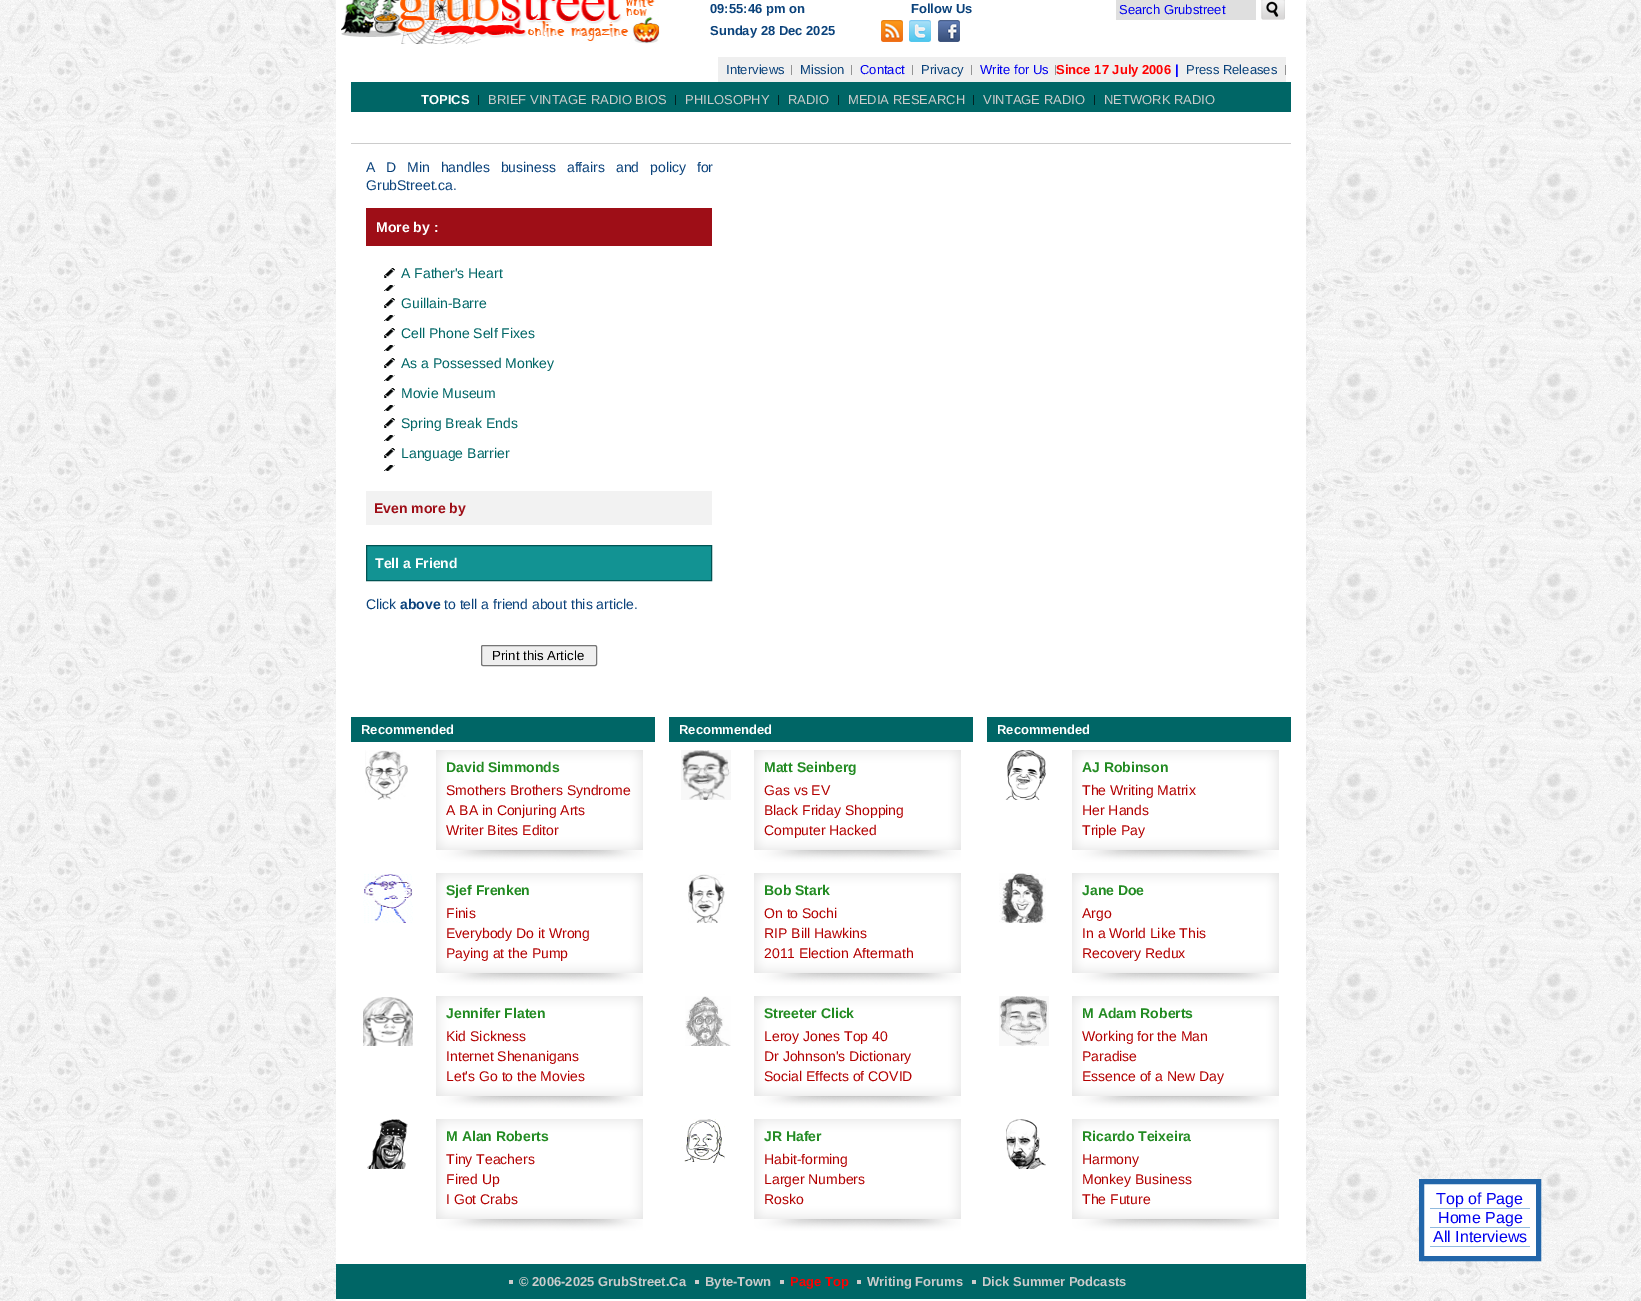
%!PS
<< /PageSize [1641 1301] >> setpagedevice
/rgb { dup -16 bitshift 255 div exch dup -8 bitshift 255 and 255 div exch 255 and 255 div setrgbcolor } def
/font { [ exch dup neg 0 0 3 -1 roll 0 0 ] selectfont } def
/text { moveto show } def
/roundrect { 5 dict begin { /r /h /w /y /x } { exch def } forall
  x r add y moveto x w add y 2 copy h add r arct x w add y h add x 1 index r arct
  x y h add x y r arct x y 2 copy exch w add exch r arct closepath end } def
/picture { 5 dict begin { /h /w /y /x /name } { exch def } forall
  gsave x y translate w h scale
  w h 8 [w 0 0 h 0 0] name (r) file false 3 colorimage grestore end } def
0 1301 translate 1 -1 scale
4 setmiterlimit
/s1 { /LiberationSans-Bold 13 font 16#0A427B rgb } def
/s2 { /LiberationSans-Regular 13 font 16#0000EE rgb } def
/s3 { /LiberationSans-Regular 13 font 16#0A427B rgb } def
/s4 { /LiberationSans-Bold 13 font 16#FF0000 rgb } def
/s5 { /LiberationSans-Bold 13 font 16#0000FF rgb } def
/s6 { /LiberationSans-Bold 13 font 16#FFFFFF rgb } def
/s7 { /LiberationSans-Regular 13 font 16#CCCCCC rgb } def
/s8 { /LiberationSans-Regular 14 font 16#0A427B rgb } def
/s9 { /LiberationSans-Bold 14 font 16#FFFFFF rgb } def
/s10 { /LiberationSans-Regular 14 font 16#006666 rgb } def
/s11 { /LiberationSans-Bold 14 font 16#9E0E17 rgb } def
/s12 { /LiberationSans-Bold 14 font 16#0A427B rgb } def
/s13 { /LiberationSans-Regular 13.25 font 16#000000 rgb } def
/s14 { /LiberationSans-Regular 16 font 16#0000EE rgb } def
/s15 { /LiberationSans-Bold 14 font 16#228B22 rgb } def
/s16 { /LiberationSans-Regular 14 font 16#B30000 rgb } def
/s17 { /LiberationSans-Bold 13 font 16#CCCCCC rgb } def
16#FFFFFF rgb
0 0 1641 1301 rectfill
(pic1.raw) 0 0 1641 1301 picture
336 0 970 1301 rectfill
(pic2.raw) 341 0 319 44 picture
s1
(09:55:46 pm on) 710 13 text
(Sunday 28 Dec 2025) 710 35 text
(Follow Us) 911 13 text
(pic3.raw) 881 20 22 22 picture
(pic4.raw) 909 20 22 22 picture
(pic5.raw) 938 20 22 22 picture
16#DFDFDF rgb
1116 0 140 20 rectfill
s2
(Search Grubstreet) 1119 14 text
(pic6.raw) 1261 0 24 20 picture
16#EFEFEF rgb
718 57 568 25 rectfill
16#939393 rgb
791 65 1 10 rectfill
s3
(Interviews) 726 74 text
16#939393 rgb
851 65 1 10 rectfill
s3
(Mission) 800 74 text
16#939393 rgb
912 65 1 10 rectfill
s2
(Contact) 860 74 text
16#939393 rgb
971 65 1 10 rectfill
s3
(Privacy) 921 74 text
16#939393 rgb
1055 65 1 10 rectfill
s2
(Write for Us) 980 74 text
s4
(Since 17 July 2006) 1056 74 text
s5
(|) 1175 74 text
16#939393 rgb
1285 65 1 10 rectfill
s3
(Press Releases) 1186 74 text
16#006666 rgb
351 82 940 30 rectfill
s6
(TOPICS) 421 104 text
s7
(BRIEF VINTAGE RADIO BIOS) 488 104 text
16#012222 rgb
478 95 1 10 rectfill
s7
(PHILOSOPHY) 685 104 text
16#012222 rgb
675 95 1 10 rectfill
s7
(RADIO) 788 104 text
16#012222 rgb
778 95 1 10 rectfill
s7
(MEDIA RESEARCH) 848 104 text
16#012222 rgb
838 95 1 10 rectfill
s7
(VINTAGE RADIO) 983 104 text
16#012222 rgb
973 95 1 10 rectfill
s7
(NETWORK RADIO) 1104 104 text
16#012222 rgb
1094 95 1 10 rectfill
16#CCCCCC rgb
351 143 940 1 rectfill
/LiberationSans-Regular 14 font
16#0A427B rgb
366 172 moveto 7 0 32 (A D Min handles business affairs and policy for) widthshow
(GrubStreet.ca.) 366 190 text
16#9E0E17 rgb
366 208 346 38 rectfill
s9
(More by :) 376 232 text
(pic7.raw) 384 268 11 10 picture
s10
(A Father's Heart) 401 278 text
(pic8.raw) 384 285 11 6 picture
(pic7.raw) 384 298 11 10 picture
(Guillain-Barre) 401 308 text
(pic8.raw) 384 315 11 6 picture
(pic7.raw) 384 328 11 10 picture
(Cell Phone Self Fixes) 401 338 text
(pic8.raw) 384 345 11 6 picture
(pic7.raw) 384 358 11 10 picture
(As a Possessed Monkey) 401 368 text
(pic8.raw) 384 375 11 6 picture
(pic7.raw) 384 388 11 10 picture
(Movie Museum) 401 398 text
(pic8.raw) 384 405 11 6 picture
(pic7.raw) 384 418 11 10 picture
(Spring Break Ends) 401 428 text
(pic8.raw) 384 435 11 6 picture
(pic7.raw) 384 448 11 10 picture
(Language Barrier) 401 458 text
(pic8.raw) 384 465 11 6 picture
16#F2F2F2 rgb
366 491 346 34 rectfill
s11
(Even more by) 374 513 text
16#129393 rgb
366.5 545.5 moveto 711.5 545.5 lineto 711.5 580.5 lineto 366.5 580.5 lineto closepath gsave fill grestore
16#005353 rgb
stroke
s9
(Tell a Friend) 375 568 text
s8
(Click) 366 609 text
s12
(above) 400 609 text
s8
(to tell a friend about this article.) 444 609 text
16#EFEFEF rgb
481.5 645.5 115 20 1.5 roundrect gsave fill grestore
16#767676 rgb
stroke
s13
(Print this Article) 492 660 text
16#FFFFFF rgb
1421.5 1181.5 moveto 1538.5 1181.5 lineto 1538.5 1258.5 lineto 1421.5 1258.5 lineto closepath gsave fill grestore
16#2266AA rgb
5 setlinewidth
stroke
16#90BADE rgb
1430 1208 100 1 rectfill
s14
(Top of Page) 1436 1204 text
16#90BADE rgb
1430 1227 100 1 rectfill
s14
(Home Page) 1438 1223 text
16#90BADE rgb
1430 1246 100 1 rectfill
s14
(All Interviews) 1433 1242 text
16#006666 rgb
351 717 304 25 rectfill
s6
(Recommended) 361 734 text
(pic9.raw) 365 750 43 50 picture
(pic10.raw) 436 750 207 112 picture
s15
(David Simmonds) 446 772 text
s16
(Smothers Brothers Syndrome) 446 795 text
(A BA in Conjuring Arts) 446 815 text
(Writer Bites Editor) 446 835 text
(pic11.raw) 363 874 50 49 picture
(pic10.raw) 436 873 207 112 picture
s15
(Sjef Frenken) 446 895 text
s16
(Finis) 446 918 text
(Everybody Do it Wrong) 446 938 text
(Paying at the Pump) 446 958 text
(pic12.raw) 363 997 50 49 picture
(pic10.raw) 436 996 207 112 picture
s15
(Jennifer Flaten) 446 1018 text
s16
(Kid Sickness) 446 1041 text
(Internet Shenanigans) 446 1061 text
(Let's Go to the Movies) 446 1081 text
(pic13.raw) 367 1119 41 50 picture
(pic10.raw) 436 1119 207 112 picture
s15
(M Alan Roberts) 446 1141 text
s16
(Tiny Teachers) 446 1164 text
(Fired Up) 446 1184 text
(I Got Crabs) 446 1204 text
16#006666 rgb
669 717 304 25 rectfill
s6
(Recommended) 679 734 text
(pic14.raw) 681 750 50 50 picture
(pic10.raw) 754 750 207 112 picture
s15
(Matt Seinberg) 764 772 text
s16
(Gas vs EV) 764 795 text
(Black Friday Shopping) 764 815 text
(Computer Hacked) 764 835 text
(pic15.raw) 688 874 37 49 picture
(pic10.raw) 754 873 207 112 picture
s15
(Bob Stark) 764 895 text
s16
(On to Sochi) 764 918 text
(RIP Bill Hawkins) 764 938 text
(2011 Election Aftermath) 764 958 text
(pic16.raw) 685 996 46 50 picture
(pic10.raw) 754 996 207 112 picture
s15
(Streeter Click) 764 1018 text
s16
(Leroy Jones Top 40) 764 1041 text
(Dr Johnson's Dictionary) 764 1061 text
(Social Effects of COVID) 764 1081 text
(pic17.raw) 681 1119 44 44 picture
(pic10.raw) 754 1119 207 112 picture
s15
(JR Hafer) 764 1141 text
s16
(Habit-forming) 764 1164 text
(Larger Numbers) 764 1184 text
(Rosko) 764 1204 text
16#006666 rgb
987 717 304 25 rectfill
s6
(Recommended) 997 734 text
(pic18.raw) 1005 750 41 50 picture
(pic10.raw) 1072 750 207 112 picture
s15
(AJ Robinson) 1082 772 text
s16
(The Writing Matrix) 1082 795 text
(Her Hands) 1082 815 text
(Triple Pay) 1082 835 text
(pic19.raw) 999 873 47 50 picture
(pic10.raw) 1072 873 207 112 picture
s15
(Jane Doe) 1082 895 text
s16
(Argo) 1082 918 text
(In a World Like This) 1082 938 text
(Recovery Redux) 1082 958 text
(pic20.raw) 999 996 50 50 picture
(pic10.raw) 1072 996 207 112 picture
s15
(M Adam Roberts) 1082 1018 text
s16
(Working for the Man) 1082 1041 text
(Paradise) 1082 1061 text
(Essence of a New Day) 1082 1081 text
(pic21.raw) 1006 1119 40 50 picture
(pic10.raw) 1072 1119 207 112 picture
s15
(Ricardo Teixeira) 1082 1141 text
s16
(Harmony) 1082 1164 text
(Monkey Business) 1082 1184 text
(The Future) 1082 1204 text
16#006666 rgb
336 1264 970 35 rectfill
s17
(© 2006-2025 GrubStreet.Ca) 519 1286 text
509 1280 4 4 rectfill
(Byte-Town) 705 1286 text
695 1280 4 4 rectfill
s4
(Page Top) 790 1286 text
16#CCCCCC rgb
780 1280 4 4 rectfill
(Writing Forums) 867 1286 text
857 1280 4 4 rectfill
(Dick Summer Podcasts) 982 1286 text
972 1280 4 4 rectfill
showpage
